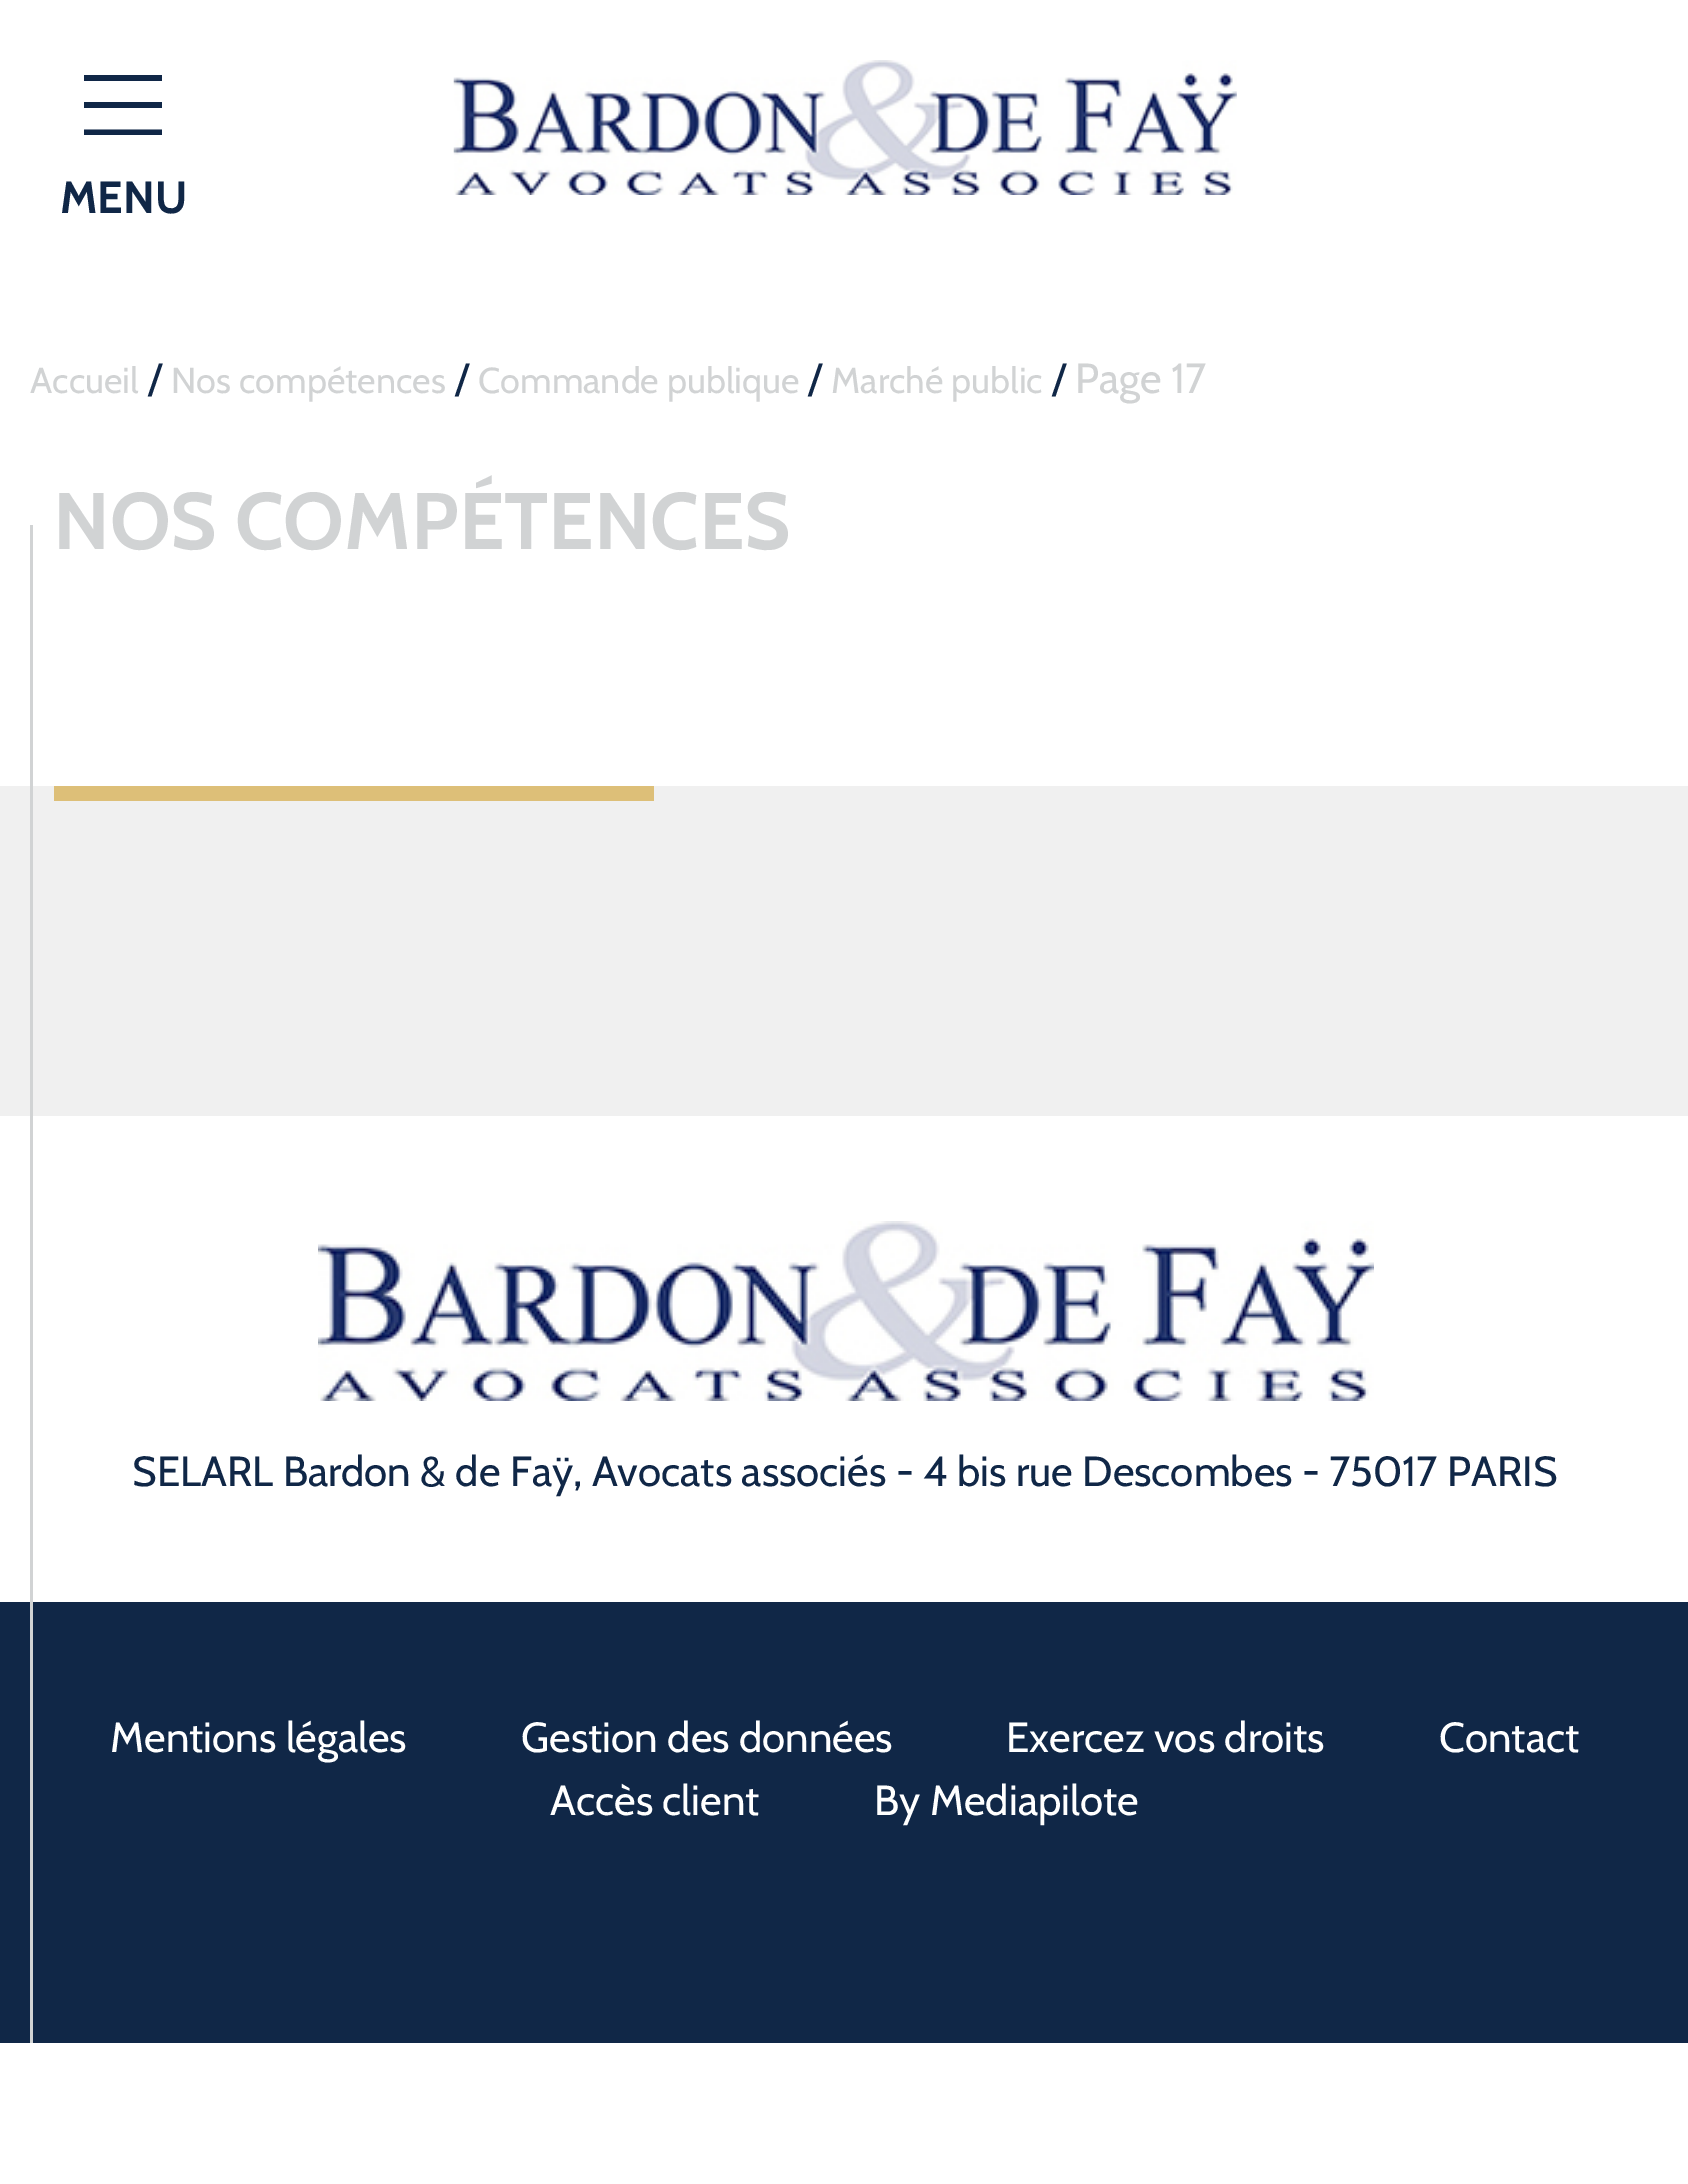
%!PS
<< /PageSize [1688 2184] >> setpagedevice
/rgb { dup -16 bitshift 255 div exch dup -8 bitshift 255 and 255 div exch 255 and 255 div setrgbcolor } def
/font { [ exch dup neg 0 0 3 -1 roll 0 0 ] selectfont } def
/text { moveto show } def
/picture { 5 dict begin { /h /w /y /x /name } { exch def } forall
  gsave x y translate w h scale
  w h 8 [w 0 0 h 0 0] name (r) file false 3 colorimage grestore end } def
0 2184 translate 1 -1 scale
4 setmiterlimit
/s1 { /Cabin-Bold 45 font 16#102747 rgb } def
/s2 { /Cabin-Regular 36 font 16#D1D3D4 rgb } def
/s3 { /Cabin-Regular 42 font 16#102747 rgb } def
/s4 { /Cabin-Regular 42 font 16#D1D3D4 rgb } def
/s5 { /Cabin-Bold 80 font 16#D1D3D4 rgb } def
/s6 { /Cabin-Regular 42 font 16#FFFFFF rgb } def
16#FFFFFF rgb
0 0 1688 2184 rectfill
16#102747 rgb
84 75 78 6 rectfill
84 102 78 6 rectfill
gsave
84 75 78 60 rectclip
6.1 setlinewidth
84 132.5 moveto 162 132.5 lineto stroke
grestore
s1
(MENU) 60 213 text
(pic1.raw) 453 60 784 135 picture
s2
(Accueil) 30 393 text
s3
(/) 148 393 text
s2
(Nos compétences) 171 393 text
s3
(/) 455 393 text
s2
(Commande publique) 478 393 text
s3
(/) 808 393 text
s2
(Marché public) 831 393 text
s3
(/) 1052 393 text
s4
(Page 17) 1075 393 text
s5
(NOS COMPÉTENCES) 53 549 text
16#F0F0F0 rgb
0 786 1688 330 rectfill
16#DDBF78 rgb
54 786 600 15 rectfill
16#D1D3D4 rgb
30 525 3 591 rectfill
16#102747 rgb
0 1602 1688 441 rectfill
16#D1D3D4 rgb
30 1116 3 927 rectfill
(pic2.raw) 318 1221 1056 180 picture
s3
(SELARL Bardon & de Faÿ, Avocats associés - 4 bis rue Descombes - 75017 PARIS) 132 1486 text
s6
(Mentions légales) 110 1752 text
(Gestion des données) 521 1752 text
(Exercez vos droits) 1006 1752 text
(Contact) 1439 1752 text
(Accès client) 550 1815 text
(By Mediapilote) 874 1815 text
showpage
